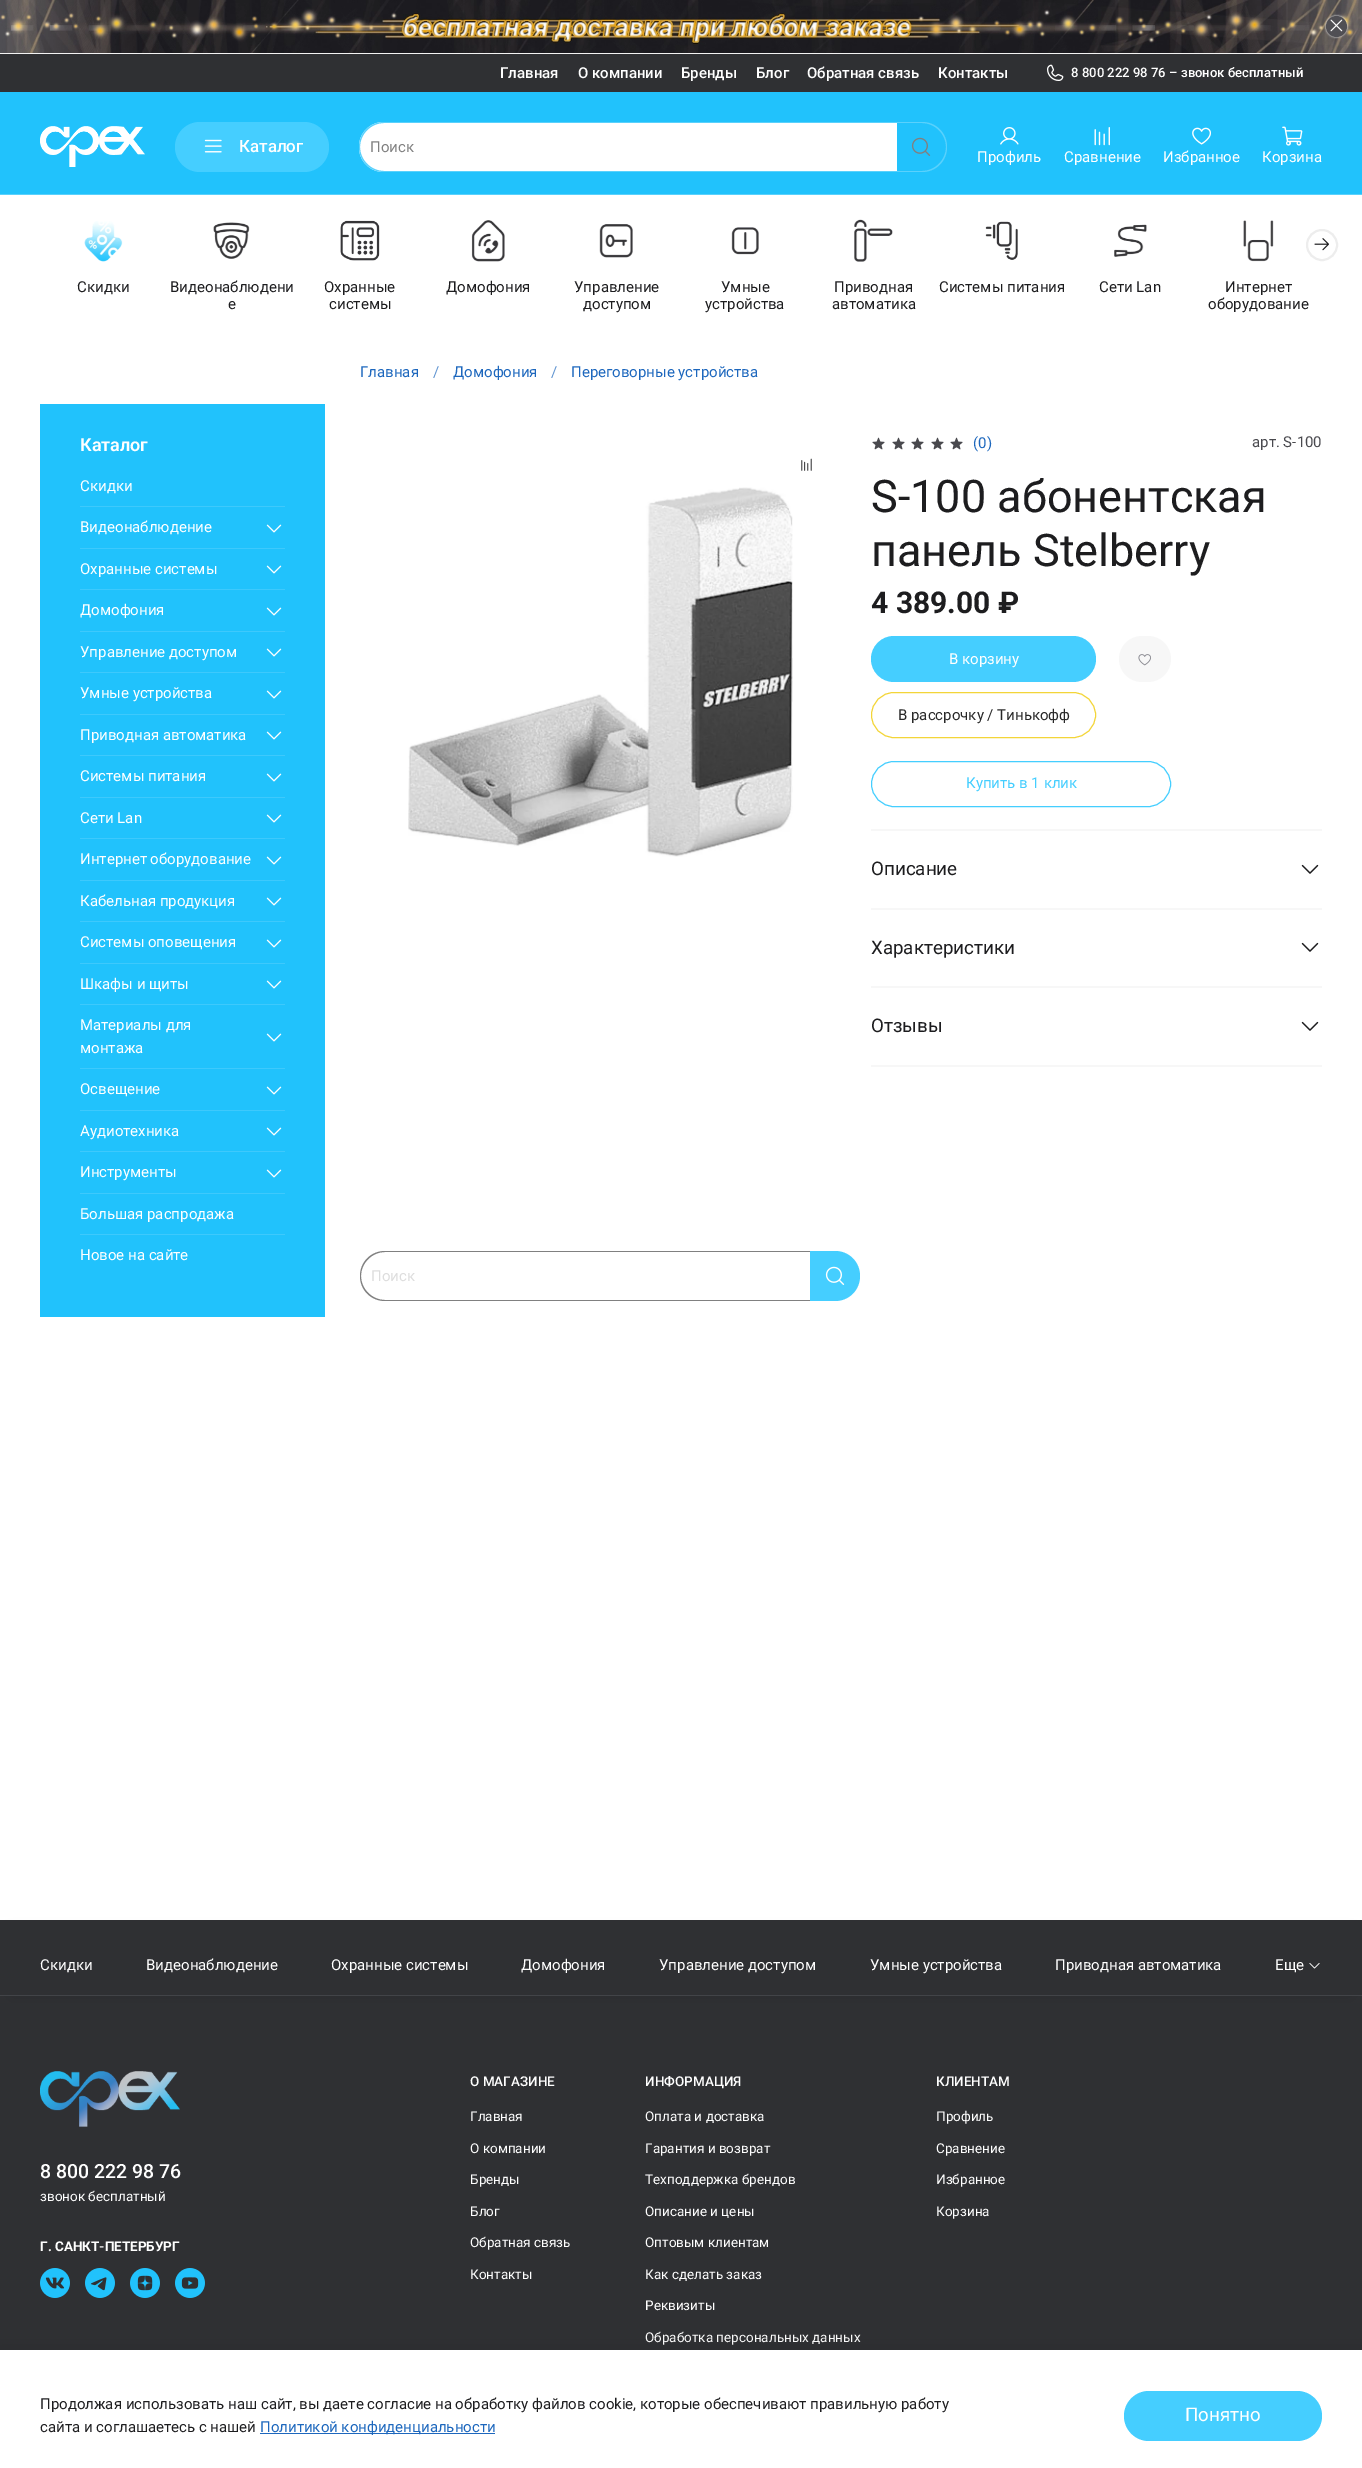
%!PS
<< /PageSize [1362 2468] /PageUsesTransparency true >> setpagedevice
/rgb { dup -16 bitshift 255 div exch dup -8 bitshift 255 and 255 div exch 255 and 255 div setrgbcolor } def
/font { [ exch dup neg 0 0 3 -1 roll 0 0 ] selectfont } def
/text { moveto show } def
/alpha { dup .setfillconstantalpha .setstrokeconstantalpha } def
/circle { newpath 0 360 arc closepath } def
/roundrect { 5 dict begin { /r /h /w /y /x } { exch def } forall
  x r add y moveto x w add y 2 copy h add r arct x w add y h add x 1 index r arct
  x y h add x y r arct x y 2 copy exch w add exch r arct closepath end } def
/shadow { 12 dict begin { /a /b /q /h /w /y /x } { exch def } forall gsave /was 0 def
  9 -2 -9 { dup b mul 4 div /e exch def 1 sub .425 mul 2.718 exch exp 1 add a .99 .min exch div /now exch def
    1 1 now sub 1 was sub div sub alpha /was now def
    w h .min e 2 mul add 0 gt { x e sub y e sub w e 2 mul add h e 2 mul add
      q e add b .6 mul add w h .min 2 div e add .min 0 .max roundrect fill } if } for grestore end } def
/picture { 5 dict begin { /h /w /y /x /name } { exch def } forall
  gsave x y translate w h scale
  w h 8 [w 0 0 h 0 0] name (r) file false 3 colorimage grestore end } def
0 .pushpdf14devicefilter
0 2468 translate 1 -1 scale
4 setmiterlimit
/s1 { /Roboto-Medium 15 font 16#FFFFFF rgb } def
/s2 { /Roboto-Medium 13.1 font 16#FFFFFF rgb } def
/s3 { /Roboto-Medium 17 font 16#FFFFFF rgb } def
/s4 { /Roboto-Regular 15 font 16#808080 rgb } def
/s5 { /Roboto-Regular 15 font 16#FFFFFF rgb } def
/s6 { /Roboto-Regular 15 font 16#1D1D1F rgb } def
/s7 { /Roboto-SemiBold 18 font 16#FFFFFF rgb } def
/s8 { /Roboto-Regular 15 font 16#1D67BD rgb } def
/s9 { /Roboto-Regular 15 font 16#6195D1 rgb } def
/s10 { /Roboto-Regular 15 font 16#49494E rgb } def
/s11 { /Roboto-Regular 45 font 16#1D1D1F rgb } def
/s12 { /Roboto-Bold 30 font 16#1D1D1F rgb } def
/s13 { /Roboto-Regular 15 font 16#282828 rgb } def
/s14 { /Roboto-Regular 15 font 16#45CEFF rgb } def
/s15 { /Roboto-Regular 18.75 font 16#1D1D1F rgb } def
/s16 { /Roboto-Regular 15 font 16#DDDDDD rgb } def
/s17 { /Roboto-Medium 19.5 font 16#FFFFFF rgb } def
/s18 { /Roboto-Regular 13.5 font 16#FFFFFF rgb } def
/s19 { /Roboto-Bold 13.5 font 16#FFFFFF rgb } def
/s20 { /Roboto-Medium 13.5 font 16#FFFFFF rgb } def
/s21 { /Roboto-Regular 18.75 font 16#FFFFFF rgb } def
16#FFFFFF rgb
0 0 1362 2468 rectfill
16#000000 rgb
-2 -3 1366 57 0 11.5 0.09 shadow
(pic1.raw) 0 0 1362 53 picture
gsave
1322 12 moveto 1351 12 lineto 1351 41 lineto 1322 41 lineto closepath 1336.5 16 moveto 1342.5 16 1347 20.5 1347 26.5 curveto 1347 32.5 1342.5 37 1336.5 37 curveto 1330.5 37 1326 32.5 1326 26.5 curveto 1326 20.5 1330.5 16 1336.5 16 curveto closepath eoclip newpath
16#FFFFFF rgb
1326 16 21 21 10.5 1 1 shadow
grestore
16#504F54 rgb
1336.5 26.5 10.5 circle fill
(pic2.raw) 1330 19 13 13 picture
16#2F3033 rgb
0 54 1362 38 rectfill
s1
(Главная) 500 78 text
(О компании) 578 78 text
(Бренды) 681 78 text
(Блог) 756 78 text
(Обратная связь) 807 78 text
(Контакты) 938 78 text
(pic3.raw) 1047 64 17 17 picture
s2
(8 800 222 98 76 – звонок бесплатный) 1071 77 text
16#21C2FC rgb
0 92 1362 102 rectfill
16#5AD1FC rgb
0 194 1362 1 rectfill
(pic4.raw) 40 126 105 41 picture
16#45CEFF rgb
175 122 154 50 25 roundrect fill
(pic5.raw) 204 139 18 14 picture
s3
(Каталог) 239 152 text
384 122 moveto 897 122 lineto 897 172 lineto 384 172 lineto 370 172 359 161 359 147 curveto 359 133 370 122 384 122 curveto closepath fill
16#5AD1FC rgb
384 122 moveto 897 122 lineto 897 172 lineto 384 172 lineto 370 172 359 161 359 147 curveto 359 133 370 122 384 122 curveto closepath 384 123 moveto 897 123 lineto 897 171 lineto 384 171 lineto 371 171 360 160 360 147 curveto 360 134 371 123 384 123 curveto closepath eofill
s4
(Поиск) 370 152 text
16#5AD1FC rgb
897 122 moveto 922 122 lineto 936 122 947 133 947 147 curveto 947 161 936 172 922 172 curveto 897 172 lineto closepath 897 123 moveto 922 123 lineto 935 123 946 134 946 147 curveto 946 160 935 171 922 171 curveto 897 171 lineto closepath eofill
(pic6.raw) 911 137 20 19 picture
(pic7.raw) 1000 127 19 18 picture
s5
(Профиль) 977 162 text
(pic8.raw) 1094 127 16 19 picture
(Сравнение) 1064 162 text
(pic9.raw) 1192 127 19 18 picture
(Избранное) 1163 162 text
(pic10.raw) 1282 126 21 20 picture
(Корзина) 1262 162 text
16#EDEDED rgb
2 setlinewidth
1322 245 15 circle stroke
(pic11.raw) 1314 238 15 13 picture
(pic12.raw) 84 221 39 41 picture
s6
(Скидки) 77 292 text
(pic13.raw) 213 222 37 37 picture
(Видеонаблюдени) 170 292 text
(е) 228 309 text
(pic14.raw) 340 220 40 41 picture
(Охранные) 324 292 text
(системы) 329 309 text
(pic15.raw) 471 220 34 42 picture
(Домофония) 446 292 text
(pic16.raw) 599 224 34 34 picture
(Управление) 574 292 text
(доступом) 583 309 text
(pic17.raw) 731 227 28 28 picture
(Умные) 721 292 text
(устройства) 705 309 text
(pic18.raw) 854 219 39 43 picture
(Приводная) 834 292 text
(автоматика) 832 309 text
(pic19.raw) 985 221 33 39 picture
(Системы питания) 939 292 text
(pic20.raw) 1114 224 33 33 picture
(Сети Lan) 1099 292 text
(pic21.raw) 1243 220 31 42 picture
(Интернет) 1225 292 text
(оборудование) 1208 309 text
16#21C2FC rgb
40 404 285 913 rectfill
s7
(Каталог) 80 451 text
16#3EC9FC rgb
80 506 205 1 rectfill
s5
(Скидки) 80 491 text
16#3EC9FC rgb
80 548 205 1 rectfill
s5
(Видеонаблюдение) 80 532 text
(pic22.raw) 266 524 16 9 picture
16#3EC9FC rgb
80 589 205 1 rectfill
s5
(Охранные системы) 80 574 text
(pic22.raw) 266 565 16 9 picture
16#3EC9FC rgb
80 631 205 1 rectfill
s5
(Домофония) 80 615 text
(pic22.raw) 266 607 16 9 picture
16#3EC9FC rgb
80 672 205 1 rectfill
s5
(Управление доступом) 80 657 text
(pic22.raw) 266 648 16 9 picture
16#3EC9FC rgb
80 714 205 1 rectfill
s5
(Умные устройства) 80 698 text
(pic22.raw) 266 690 16 9 picture
16#3EC9FC rgb
80 755 205 1 rectfill
s5
(Приводная автоматика) 80 740 text
(pic22.raw) 266 731 16 9 picture
16#3EC9FC rgb
80 797 205 1 rectfill
s5
(Системы питания) 80 781 text
(pic22.raw) 266 773 16 9 picture
16#3EC9FC rgb
80 838 205 1 rectfill
s5
(Сети Lan) 80 823 text
(pic22.raw) 266 814 16 9 picture
16#3EC9FC rgb
80 880 205 1 rectfill
s5
(Интернет оборудование) 80 864 text
(pic22.raw) 266 856 16 9 picture
16#3EC9FC rgb
80 921 205 1 rectfill
s5
(Кабельная продукция) 80 906 text
(pic22.raw) 266 897 16 9 picture
16#3EC9FC rgb
80 963 205 1 rectfill
s5
(Системы оповещения) 80 947 text
(pic22.raw) 266 939 16 9 picture
16#3EC9FC rgb
80 1004 205 1 rectfill
s5
(Шкафы и щиты) 80 989 text
(pic22.raw) 266 980 16 9 picture
16#3EC9FC rgb
80 1068 205 1 rectfill
s5
(Материалы для) 80 1030 text
(монтажа) 80 1053 text
(pic22.raw) 266 1033 16 9 picture
16#3EC9FC rgb
80 1110 205 1 rectfill
s5
(Освещение) 80 1094 text
(pic22.raw) 266 1086 16 9 picture
16#3EC9FC rgb
80 1151 205 1 rectfill
s5
(Аудиотехника) 80 1136 text
(pic22.raw) 266 1127 16 9 picture
16#3EC9FC rgb
80 1193 205 1 rectfill
s5
(Инструменты) 80 1177 text
(pic22.raw) 266 1169 16 9 picture
16#3EC9FC rgb
80 1234 205 1 rectfill
s5
(Большая распродажа) 80 1219 text
(Новое на сайте) 80 1260 text
s8
(Главная) 360 377 text
s9
(/) 433 377 text
s8
(Домофония) 453 377 text
s9
(/) 551 377 text
s8
(Переговорные устройства) 571 377 text
(pic23.raw) 801 458 11 13 picture
(pic24.raw) 408 487 385 370 picture
(pic25.raw) 872 437 13 13 picture
(pic25.raw) 892 437 13 13 picture
(pic25.raw) 911 437 13 13 picture
(pic25.raw) 931 437 13 13 picture
(pic25.raw) 950 437 13 13 picture
(\(0\)) 973 448 text
s10
(арт. S-100) 1252 447 text
s11
(S-100 абонентская) 871 512 text
(панель Stelberry) 871 566 text
s12
(4 389.00 ₽) 871 613 text
16#45CEFF rgb
871 636 225 46 23 roundrect fill
s5
(В корзину) 949 664 text
16#F3D539 rgb
1 setlinewidth
871.5 692.5 224 45 22.5 roundrect stroke
s13
(В рассрочку / Тинькофф) 898 720 text
16#F7F7F7 rgb
1119 636 52 46 23 roundrect fill
(pic26.raw) 1138 654 13 12 picture
16#45CEFF rgb
871.5 761.5 299 45 22.5 roundrect stroke
(Купить в 1 клик) 966 788 text
16#F7F7F7 rgb
871 829 451 2 rectfill
s15
(Описание) 871 875 text
(pic27.raw) 1301 864 18 10 picture
16#F7F7F7 rgb
871 908 451 2 rectfill
s15
(Характеристики) 871 954 text
(pic27.raw) 1301 942 18 10 picture
16#F7F7F7 rgb
871 986 451 2 rectfill
871 1065 451 2 rectfill
s15
(Отзывы) 871 1032 text
(pic27.raw) 1301 1021 18 10 picture
16#808080 rgb
385 1251 moveto 810 1251 lineto 810 1301 lineto 385 1301 lineto 371 1301 360 1290 360 1276 curveto 360 1262 371 1251 385 1251 curveto closepath 385 1252 moveto 810 1252 lineto 810 1300 lineto 385 1300 lineto 372 1300 361 1289 361 1276 curveto 361 1263 372 1252 385 1252 curveto closepath eofill
s16
(Поиск) 371 1281 text
16#45CEFF rgb
810 1251 moveto 835 1251 lineto 849 1251 860 1262 860 1276 curveto 860 1290 849 1301 835 1301 curveto 810 1301 lineto closepath fill
(pic28.raw) 825 1266 20 19 picture
16#2F3033 rgb
0 1996 1362 354 rectfill
16#000000 rgb
10 1940 1342 56 0 10 0.1 shadow
16#2F3033 rgb
0 1920 1362 75 rectfill
16#424448 rgb
0 1995 1362 1 rectfill
s5
(Скидки) 40 1970 text
(Видеонаблюдение) 146 1970 text
(Охранные системы) 331 1970 text
(Домофония) 521 1970 text
(Управление доступом) 659 1970 text
(Умные устройства) 870 1970 text
(Приводная автоматика) 1055 1970 text
(Еще) 1275 1970 text
(pic29.raw) 1309 1963 11 6 picture
(pic30.raw) 40 2071 140 56 picture
s17
(8 800 222 98 76) 40 2178 text
s18
(звонок бесплатный) 40 2201 text
s19
(Г. САНКТ-ПЕТЕРБУРГ) 40 2251 text
(pic31.raw) 40 2268 30 30 picture
(pic32.raw) 85 2268 30 30 picture
(pic33.raw) 130 2268 30 30 picture
(pic34.raw) 175 2268 30 30 picture
s20
(О МАГАЗИНЕ) 470 2086 text
s18
(Главная) 470 2121 text
(О компании) 470 2153 text
(Бренды) 470 2184 text
(Блог) 470 2216 text
(Обратная связь) 470 2247 text
(Контакты) 470 2279 text
s20
(ИНФОРМАЦИЯ) 645 2086 text
s18
(Оплата и доставка) 645 2121 text
(Гарантия и возврат) 645 2153 text
(Техподдержка брендов) 645 2184 text
(Описание и цены) 645 2216 text
(Оптовым клиентам) 645 2247 text
(Как сделать заказ) 645 2279 text
(Реквизиты) 645 2310 text
(Обработка персональных данных) 645 2342 text
s20
(КЛИЕНТАМ) 936 2086 text
s18
(Профиль) 936 2121 text
(Сравнение) 936 2153 text
(Избранное) 936 2184 text
(Корзина) 936 2216 text
16#000000 rgb
-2 2347 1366 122 0 11.5 0.09 shadow
16#FFFFFF rgb
0 2350 1362 118 rectfill
s6
(Продолжая использовать наш сайт, вы даете согласие на обработку файлов cookie, которые обеспечивают правильную работу) 40 2409 text
(сайта и соглашаетесь с нашей) 40 2432 text
16#1D67BD rgb
260 2433 235 1 rectfill
(Политикой конфиденциальности) 260 2432 text
16#45CEFF rgb
1124 2391 198 50 25 roundrect fill
s21
(Понятно) 1185 2421 text
.poppdf14devicefilter showpage
